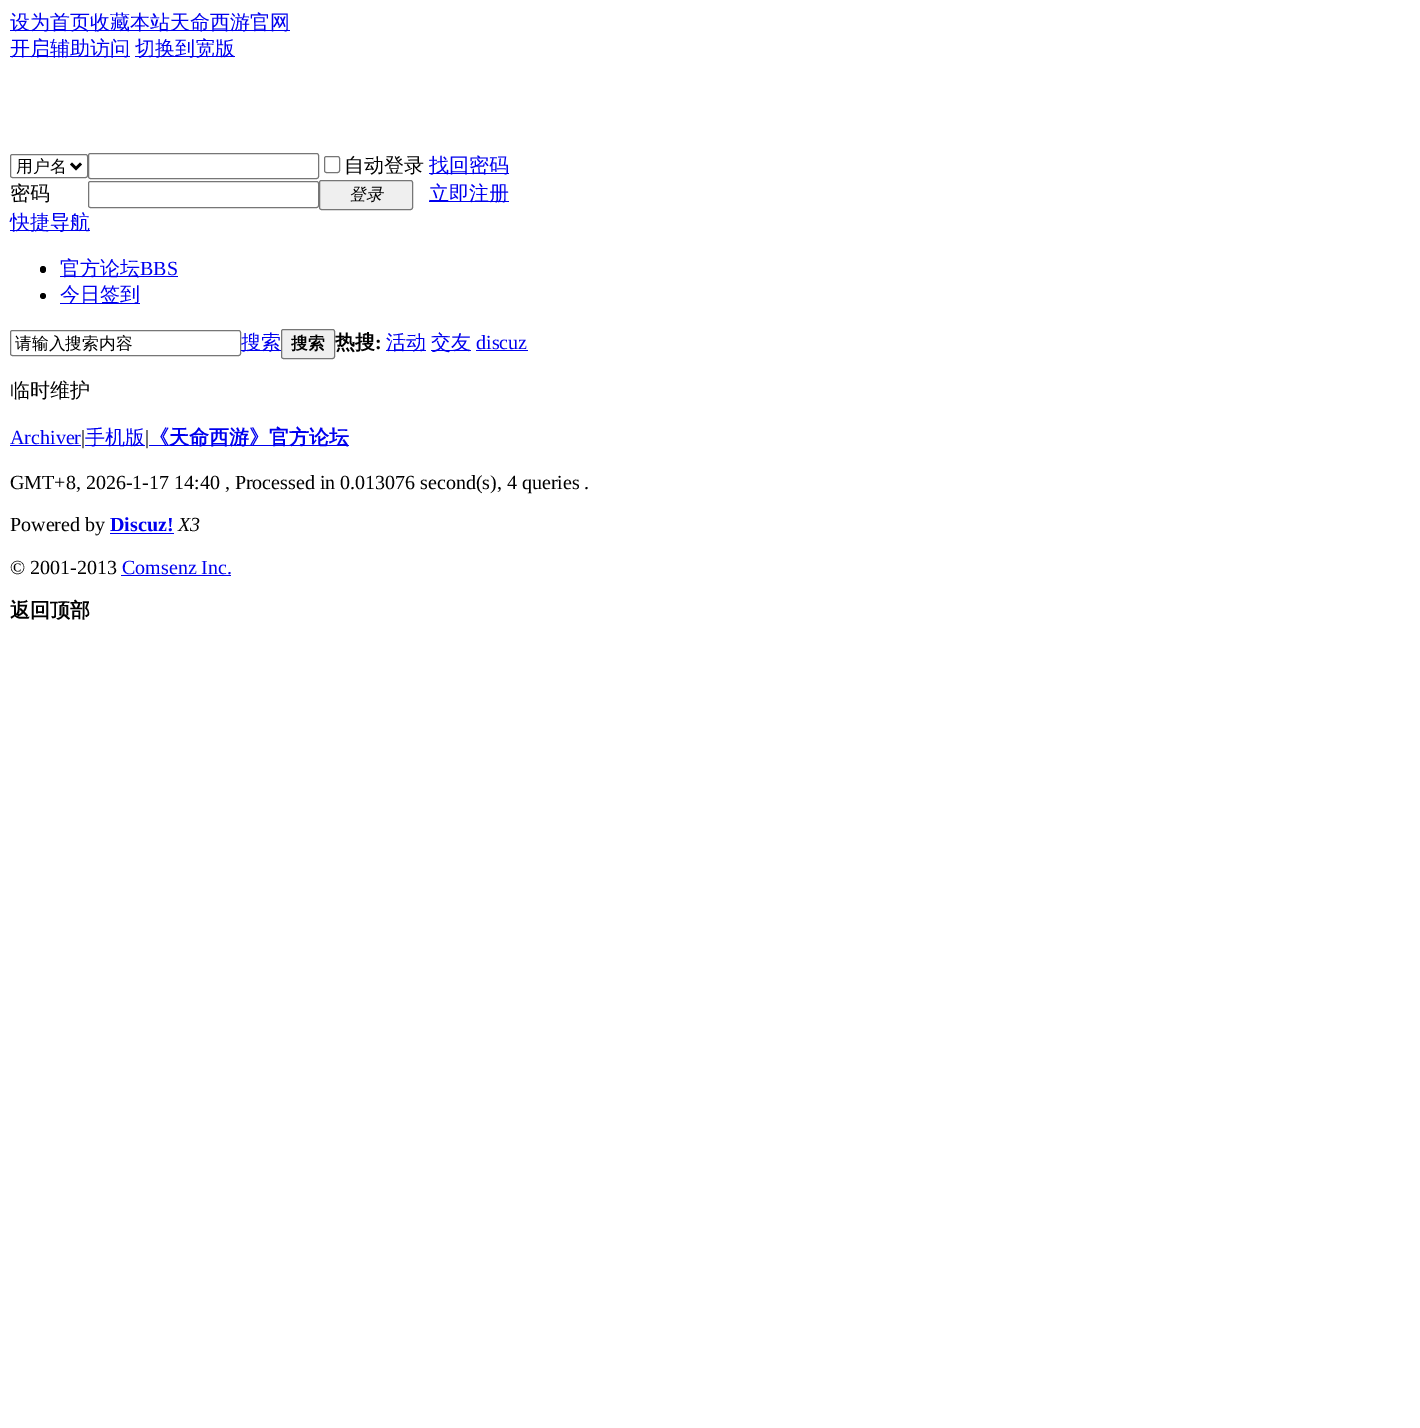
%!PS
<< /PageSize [1420 1428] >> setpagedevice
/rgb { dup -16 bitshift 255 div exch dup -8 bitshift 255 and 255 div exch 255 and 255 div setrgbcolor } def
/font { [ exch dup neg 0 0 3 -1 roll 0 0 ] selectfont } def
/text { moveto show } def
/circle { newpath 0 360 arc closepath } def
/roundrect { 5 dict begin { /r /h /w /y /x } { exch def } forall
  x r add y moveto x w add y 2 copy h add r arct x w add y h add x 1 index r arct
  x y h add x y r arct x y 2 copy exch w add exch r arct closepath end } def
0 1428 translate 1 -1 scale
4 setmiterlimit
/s1 { /WenQuanYiZenHei-Medium 20 font 16#0000EE rgb } def
/s2 { /WenQuanYiZenHei-Medium 16.75 font 16#000000 rgb } def
/s3 { /WenQuanYiZenHei-Medium 20 font 16#000000 rgb } def
/s4 { /WenQuanYiZenHei-MediumItalic 16.75 font 16#000000 rgb } def
/s5 { /LiberationSerif-Regular 20 font 16#0000EE rgb } def
/s6 { /WenQuanYiZenHei-Bold 16.75 font 16#000000 rgb } def
/s7 { /WenQuanYiZenHei-Bold 20 font 16#000000 rgb } def
/s8 { /LiberationSerif-Bold 20 font 16#000000 rgb } def
/s9 { /LiberationSerif-Regular 20 font 16#000000 rgb } def
/s10 { /WenQuanYiZenHei-Bold 20 font 16#0000EE rgb } def
/s11 { /LiberationSerif-Bold 20 font 16#0000EE rgb } def
/s12 { /LiberationSerif-Italic 20 font 16#000000 rgb } def
16#FFFFFF rgb
0 0 1420 1428 rectfill
16#0000EE rgb
10 30 280 1 rectfill
s1
(设为首页收藏本站天命西游官网) 10 29 text
10 56 120 1 rectfill
(开启辅助访问) 10 55 text
135 56 100 1 rectfill
(切换到宽版) 135 55 text
16#767676 rgb
10.5 154.5 77 23 2 roundrect stroke
16#000000 rgb
2.5 setlinewidth
71 163.5 moveto 76 168.5 lineto 81 163.5 lineto stroke
s2
(用户名) 16 172 text
16#767676 rgb
1 setlinewidth
88.5 153.5 230 25 2 roundrect stroke
324.5 156.5 15 16 2 roundrect stroke
s3
(自动登录) 344 172 text
16#0000EE rgb
429 173 80 1 rectfill
(找回密码) 429 172 text
s3
(密码) 10 200 text
16#767676 rgb
88.5 181.5 230 26 2 roundrect stroke
16#EFEFEF rgb
319.5 180.5 93 29 2 roundrect gsave fill grestore
16#767676 rgb
stroke
s4
(登录) 349 200 text
16#0000EE rgb
429 201 80 1 rectfill
s1
(立即注册) 429 200 text
10 230 80 1 rectfill
(快捷导航) 10 229 text
16#000000 rgb
40 266 6 7 3 roundrect fill
16#0000EE rgb
60 276 118 1 rectfill
(官方论坛) 60 275 text
s5
(BBS) 140 275 text
16#000000 rgb
43 296 3 circle fill
16#0000EE rgb
60 303 80 1 rectfill
s1
(今日签到) 60 301 text
16#767676 rgb
10.5 330.5 230 25 2 roundrect stroke
s2
(请输入搜索内容) 15 349 text
16#0000EE rgb
241 350 40 1 rectfill
s1
(搜索) 241 349 text
16#EFEFEF rgb
281.5 329.5 53 29 2 roundrect gsave fill grestore
16#767676 rgb
stroke
s6
(搜索) 291 349 text
s7
(热搜) 335 349 text
s8
(:) 375 349 text
16#0000EE rgb
386 350 40 1 rectfill
s1
(活动) 386 349 text
431 350 40 1 rectfill
(交友) 431 349 text
s5
(discuz) 476 349 text
476 350 52 1 rectfill
s3
(临时维护) 10 397 text
s5
(Archiver) 10 444 text
10 445 71 1 rectfill
s9
(|) 81 444 text
16#0000EE rgb
85 445 60 1 rectfill
s1
(手机版) 85 444 text
s9
(|) 145 444 text
16#0000EE rgb
149 445 200 1 rectfill
s10
(《天命西游》官方论坛) 149 444 text
s9
(GMT+8, 2026-1-17 14:40 , Processed in 0.013076 second\(s\), 4 queries .) 10 489 text
(Powered by) 10 531 text
s11
(Discuz!) 110 531 text
110 533 64 1 rectfill
s12
(X3) 178 531 text
s9
(© 2001-2013) 10 574 text
s5
(Comsenz Inc.) 122 574 text
121 575 110 1 rectfill
s7
(返回顶部) 10 617 text
showpage
